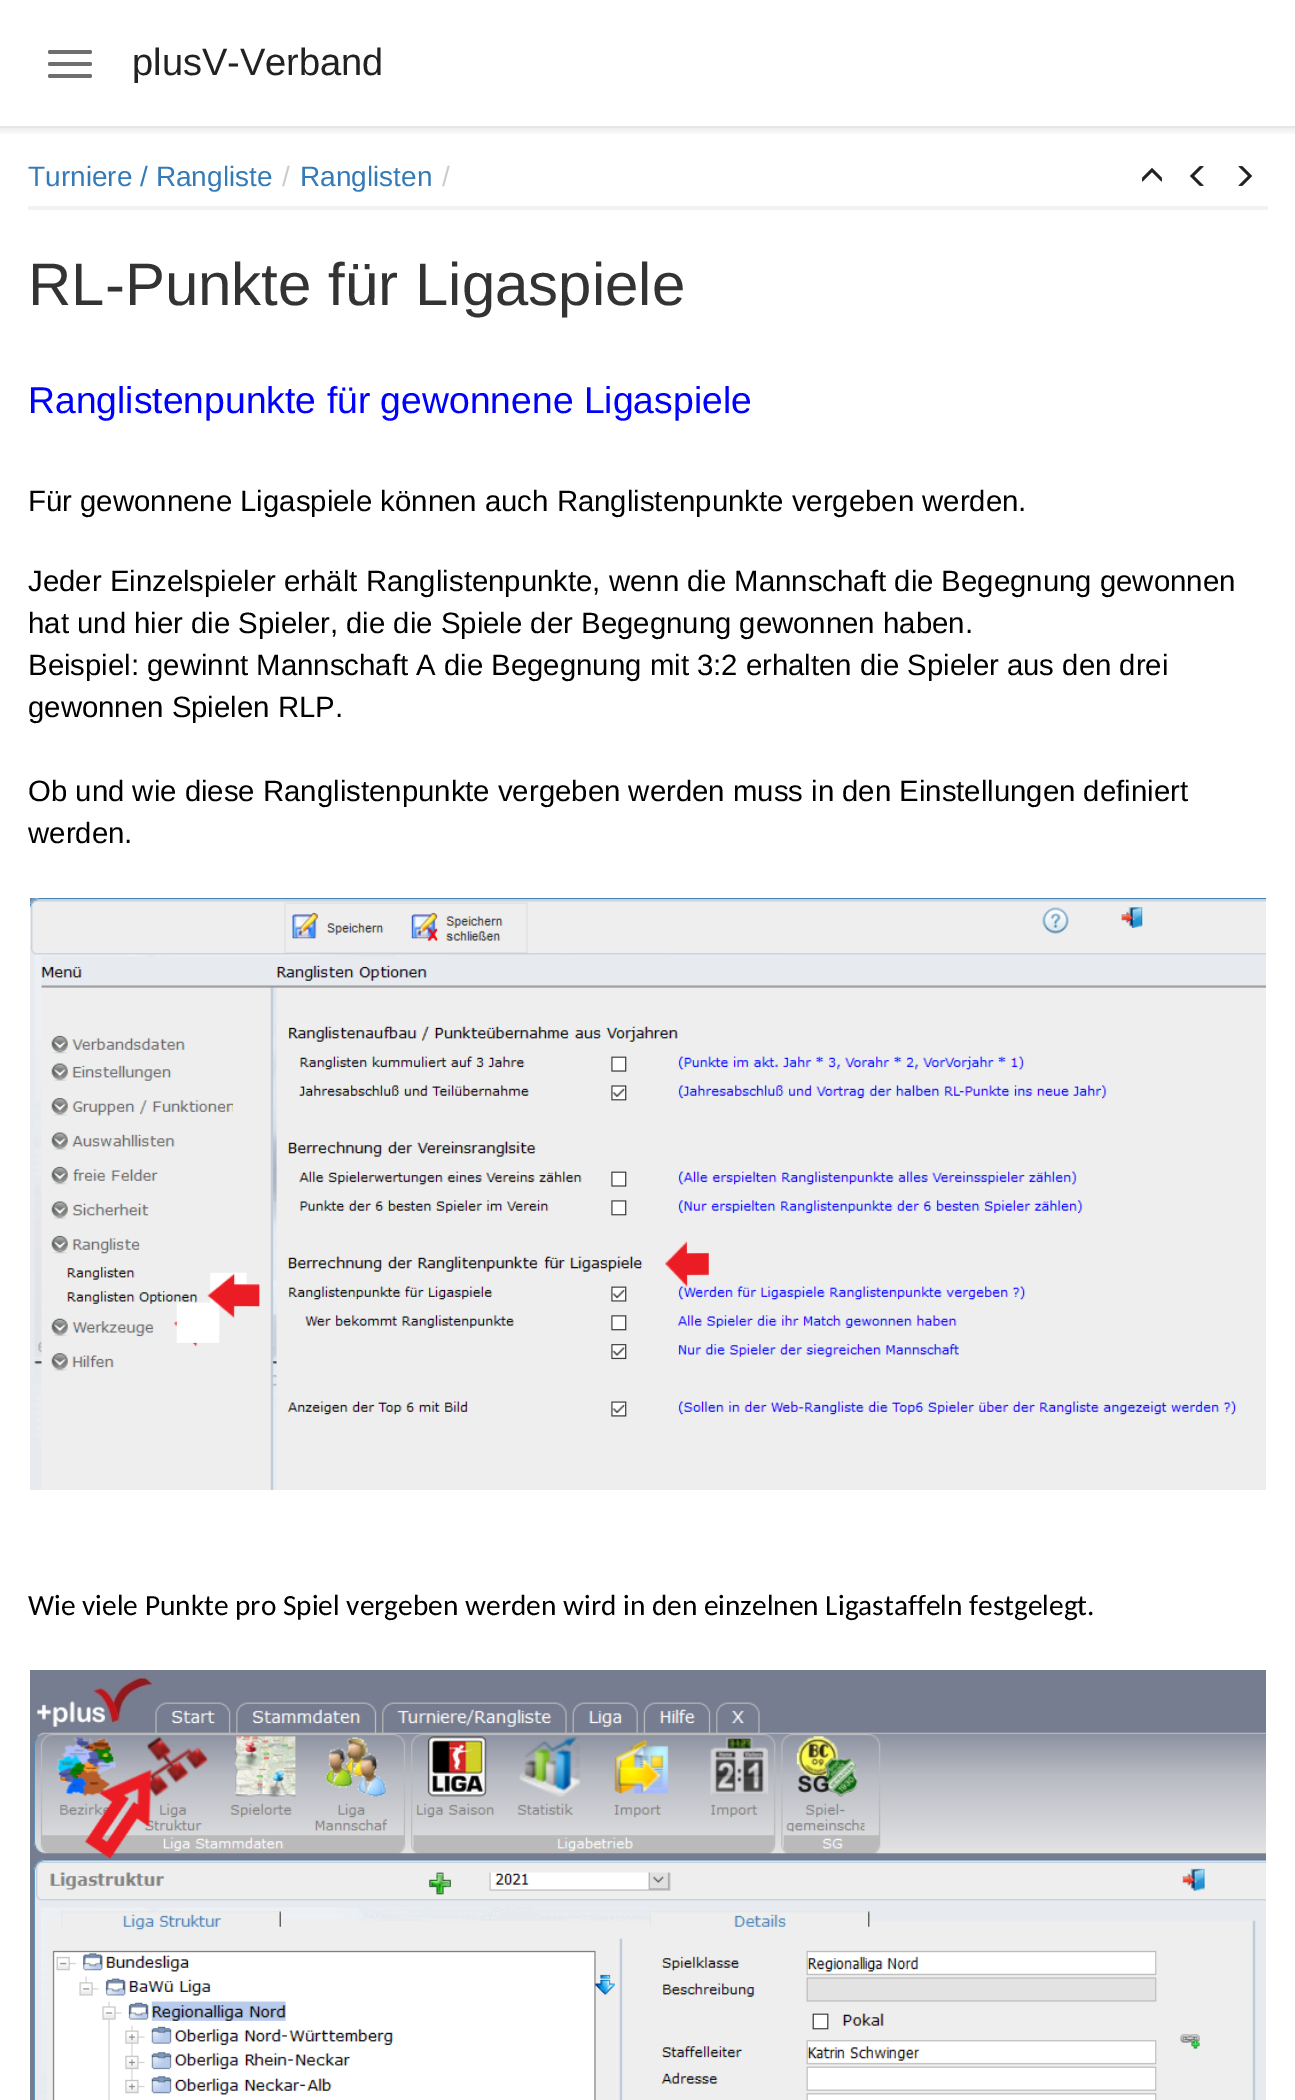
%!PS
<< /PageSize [1295 2100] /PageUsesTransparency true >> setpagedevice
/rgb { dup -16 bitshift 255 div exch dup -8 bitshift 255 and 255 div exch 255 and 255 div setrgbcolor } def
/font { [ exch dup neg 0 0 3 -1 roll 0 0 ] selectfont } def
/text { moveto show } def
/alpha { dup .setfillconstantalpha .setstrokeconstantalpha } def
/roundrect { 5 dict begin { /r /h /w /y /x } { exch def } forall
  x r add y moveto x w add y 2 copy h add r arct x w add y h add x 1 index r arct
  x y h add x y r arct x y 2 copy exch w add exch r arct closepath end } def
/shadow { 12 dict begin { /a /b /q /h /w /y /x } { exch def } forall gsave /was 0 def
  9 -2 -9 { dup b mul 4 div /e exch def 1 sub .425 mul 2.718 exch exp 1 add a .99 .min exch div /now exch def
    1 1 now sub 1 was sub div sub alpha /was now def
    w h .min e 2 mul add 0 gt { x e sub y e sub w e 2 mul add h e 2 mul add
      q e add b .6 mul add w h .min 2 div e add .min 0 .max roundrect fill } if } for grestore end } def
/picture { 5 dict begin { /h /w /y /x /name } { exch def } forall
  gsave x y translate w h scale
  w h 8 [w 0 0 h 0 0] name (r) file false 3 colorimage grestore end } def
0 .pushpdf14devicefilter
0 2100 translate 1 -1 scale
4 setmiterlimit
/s1 { /LiberationSans-Regular 38 font 16#222222 rgb } def
/s2 { /LiberationSans-Regular 28 font 16#337AB7 rgb } def
/s3 { /LiberationSans-Regular 28 font 16#CCCCCC rgb } def
/s4 { /LiberationSans-Regular 60 font 16#333333 rgb } def
/s5 { /LiberationSans-Regular 37.3 font 16#0000FF rgb } def
/s6 { /LiberationSans-Regular 29.35 font 16#000000 rgb } def
/s7 { /Carlito-Regular 29.35 font 16#000000 rgb } def
16#FFFFFF rgb
0 0 1295 2100 rectfill
gsave
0 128 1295 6 rectclip
16#000000 rgb
0 2 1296 128 0 5 0.1 shadow
grestore
16#E6E6E6 rgb
0 126 1295 2 rectfill
16#6F6F6F rgb
48 50 44 4 2 roundrect fill
48 62 44 4 2 roundrect fill
48 74 44 4 2 roundrect fill
s1
(plusV-Verband) 132 75 text
16#F2F2F2 rgb
28 206 1240 4 rectfill
s2
(Turniere / Rangliste) 28 186 text
s3
(/) 282 186 text
s2
(Ranglisten) 300 186 text
s3
(/) 442 186 text
(pic1.raw) 1142 168 20 14 picture
(pic2.raw) 1190 166 14 20 picture
(pic3.raw) 1238 166 14 20 picture
s4
(RL-Punkte für Ligaspiele) 28 305 text
s5
(Ranglistenpunkte für gewonnene Ligaspiele) 28 413 text
s6
(Für gewonnene Ligaspiele können auch Ranglistenpunkte vergeben werden.) 28 511 text
(Jeder Einzelspieler erhält Ranglistenpunkte, wenn die Mannschaft die Begegnung gewonnen) 28 591 text
(hat und hier die Spieler, die die Spiele der Begegnung gewonnen haben.) 28 633 text
(Beispiel: gewinnt Mannschaft A die Begegnung mit 3:2 erhalten die Spieler aus den drei) 28 675 text
(gewonnen Spielen RLP.) 28 717 text
(Ob und wie diese Ranglistenpunkte vergeben werden muss in den Einstellungen definiert) 28 801 text
(werden.) 28 843 text
(pic4.raw) 30 898 1236 592 picture
s7
(Wie viele Punkte pro Spiel vergeben werden wird in den einzelnen Ligastaffeln festgelegt.) 28 1615 text
(pic5.raw) 30 1670 1236 430 picture
.poppdf14devicefilter showpage
